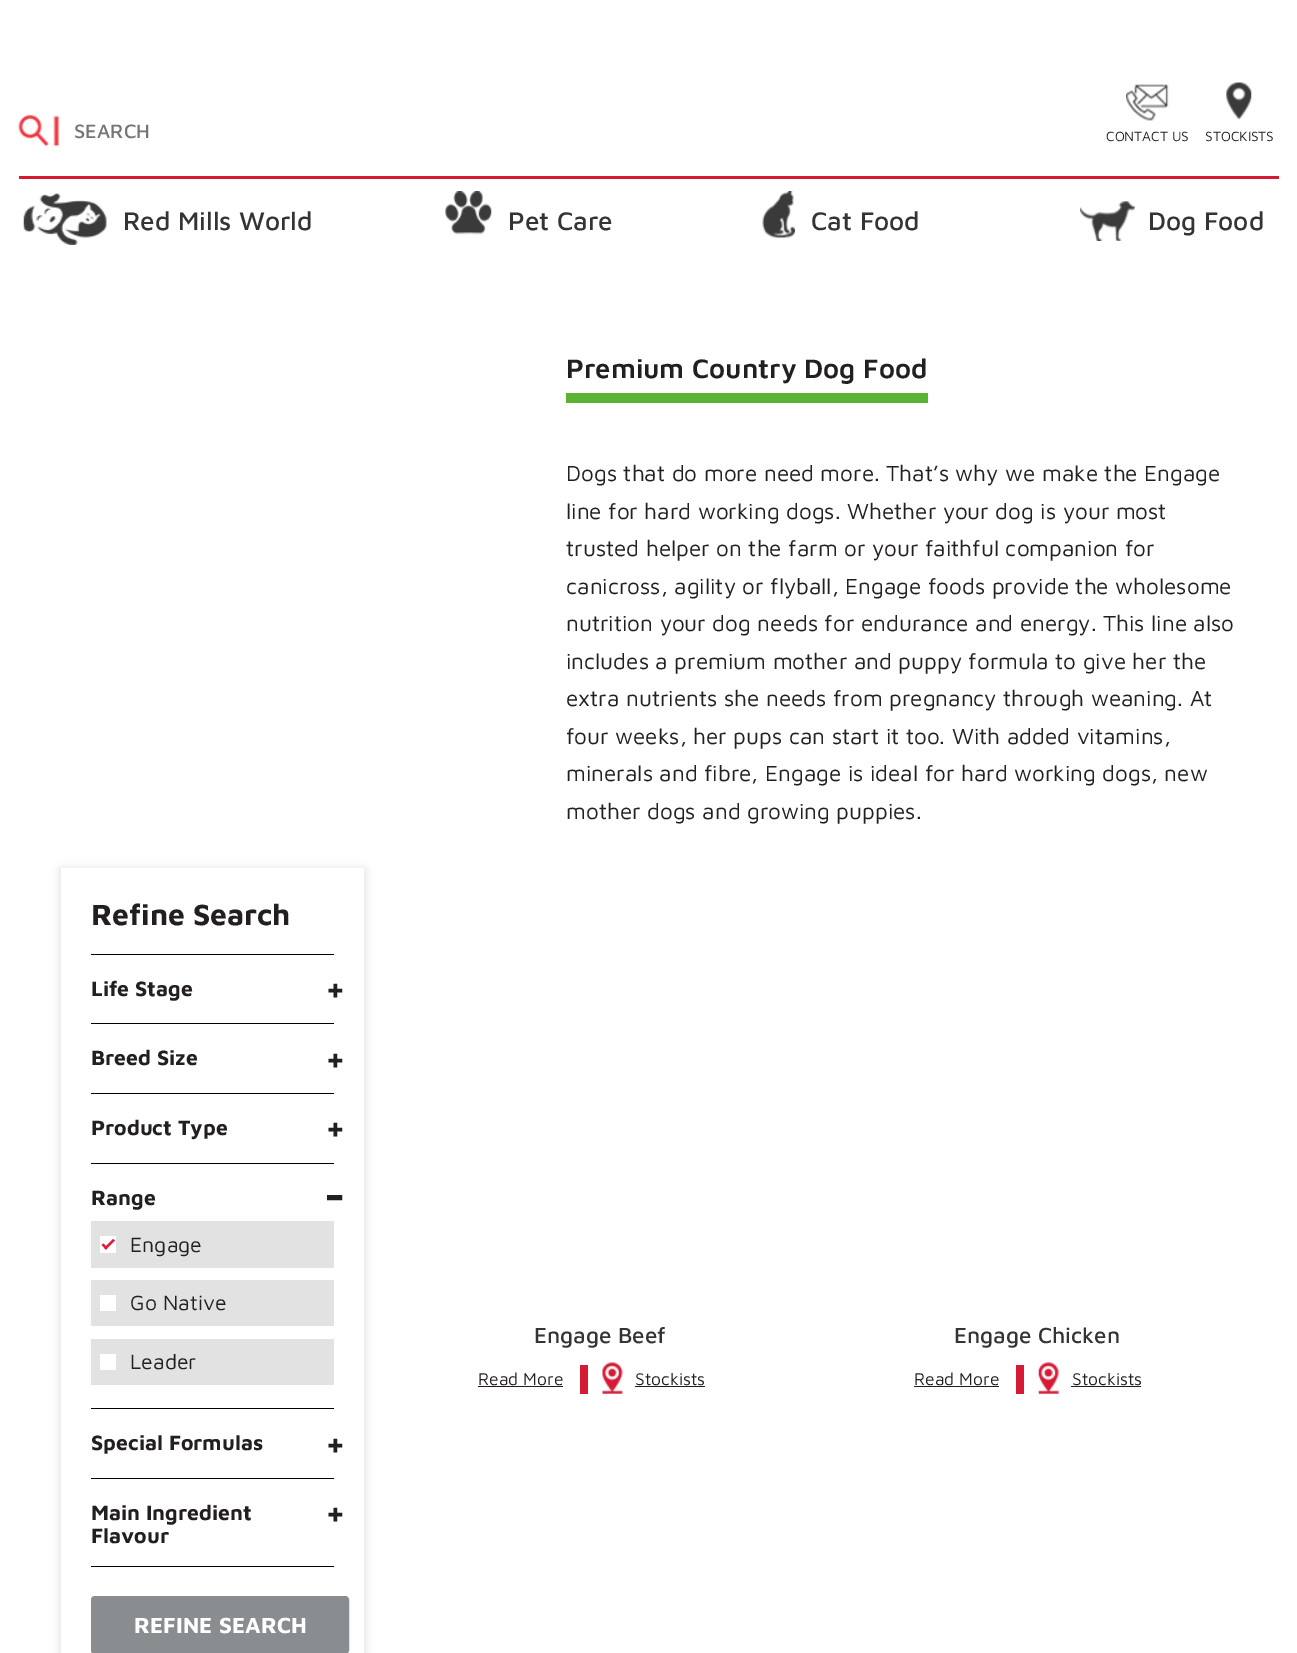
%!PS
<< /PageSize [1297 1653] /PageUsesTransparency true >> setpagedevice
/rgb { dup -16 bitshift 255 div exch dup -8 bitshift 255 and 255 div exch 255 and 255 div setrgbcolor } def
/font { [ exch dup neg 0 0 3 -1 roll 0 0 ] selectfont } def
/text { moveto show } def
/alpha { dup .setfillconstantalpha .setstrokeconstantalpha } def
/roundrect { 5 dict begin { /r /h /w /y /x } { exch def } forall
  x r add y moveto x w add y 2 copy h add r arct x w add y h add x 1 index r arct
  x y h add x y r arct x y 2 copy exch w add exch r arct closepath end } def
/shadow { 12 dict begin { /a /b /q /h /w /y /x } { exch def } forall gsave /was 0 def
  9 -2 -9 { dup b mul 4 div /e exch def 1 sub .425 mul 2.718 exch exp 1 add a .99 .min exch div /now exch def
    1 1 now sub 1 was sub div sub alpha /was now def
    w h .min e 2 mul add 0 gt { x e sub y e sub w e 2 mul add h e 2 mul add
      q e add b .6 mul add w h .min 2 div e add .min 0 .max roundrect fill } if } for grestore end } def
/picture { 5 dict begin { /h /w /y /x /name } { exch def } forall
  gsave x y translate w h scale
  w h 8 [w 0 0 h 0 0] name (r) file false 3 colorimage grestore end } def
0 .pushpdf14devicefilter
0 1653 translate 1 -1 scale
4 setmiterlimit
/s1 { /MavenPro-Medium 20 font 16#757575 rgb } def
/s2 { /MavenPro-Regular 13.75 font 16#231F20 rgb } def
/s3 { /MavenPro-Medium 26.25 font 16#343434 rgb } def
/s4 { /MavenPro-SemiBold 27.5 font 16#231F20 rgb } def
/s5 { /MavenPro-Regular 22.5 font 16#231F20 rgb } def
/s6 { /MavenPro-Bold 30 font 16#231F20 rgb } def
/s7 { /MavenPro-Bold 21.25 font 16#231F20 rgb } def
/s8 { /MavenPro-Bold 38 font 16#231F20 rgb } def
/s9 { /MavenPro-Bold 50 font 16#231F20 rgb } def
/s10 { /MavenPro-Regular 21.25 font 16#231F20 rgb } def
/s11 { /MavenPro-Bold 22.5 font 16#FFFFFF rgb } def
/s12 { /MavenPro-Medium 22.5 font 16#343434 rgb } def
/s13 { /MavenPro-Regular 17.5 font 16#231F20 rgb } def
16#FFFFFF rgb
0 0 1297 1653 rectfill
(pic1.raw) 18 115 41 32 picture
s1
(SEARCH) 74 138 text
(pic2.raw) 1126 84 43 37 picture
s2
(CONTACT US) 1106 141 text
(pic3.raw) 1226 82 26 38 picture
(STOCKISTS) 1205 141 text
16#D61A36 rgb
19 176 1260 3 rectfill
(pic4.raw) 23 193 84 52 picture
s3
(Red Mills World) 123 230 text
(pic5.raw) 445 191 47 44 picture
(Pet Care) 508 230 text
(pic6.raw) 762 191 33 48 picture
(Cat Food) 811 230 text
(pic7.raw) 1080 201 55 40 picture
(Dog Food) 1148 230 text
16#5AB332 rgb
566 393 362 10 rectfill
s4
(Premium Country Dog Food) 566 378 text
s5
(Dogs that do more need more. That’s why we make the Engage) 566 481 text
(line for hard working dogs. Whether your dog is your most) 566 519 text
(trusted helper on the farm or your faithful companion for) 566 556 text
(canicross, agility or flyball, Engage foods provide the wholesome) 566 594 text
(nutrition your dog needs for endurance and energy. This line also) 566 631 text
(includes a premium mother and puppy formula to give her the) 566 669 text
(extra nutrients she needs from pregnancy through weaning. At) 566 706 text
(four weeks, her pups can start it too. With added vitamins,) 566 744 text
(minerals and fibre, Engage is ideal for hard working dogs, new) 566 781 text
(mother dogs and growing puppies.) 566 819 text
gsave
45 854 moveto 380 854 lineto 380 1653 lineto 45 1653 lineto closepath 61 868 moveto 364 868 lineto 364 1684 lineto 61 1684 lineto closepath eoclip newpath
16#DBDBDB rgb
60 869 305 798 0 4.5 1 shadow
grestore
s6
(Refine Search) 91 925 text
16#000000 rgb
91 954 243 1 rectfill
s7
(Life Stage) 91 996 text
s8
(+) 325 1002 text
16#000000 rgb
91 1023 243 1 rectfill
s7
(Breed Size) 91 1065 text
s8
(+) 325 1072 text
16#000000 rgb
91 1093 243 1 rectfill
s7
(Product Type) 91 1135 text
s8
(+) 325 1141 text
16#000000 rgb
91 1163 243 1 rectfill
s7
(Range) 91 1205 text
s9
(-) 323 1213 text
16#E2E2E2 rgb
91 1221 243 47 rectfill
16#FFFFFF rgb
100 1236 16 17 rectfill
s10
(Engage) 130 1252 text
16#E41938 rgb
113 1239 moveto 115 1240.5 lineto 106 1249.5 lineto 104 1248 lineto closepath fill
103.5 1243.5 moveto 107.5 1248 lineto 106 1249.5 lineto 101.5 1245 lineto closepath fill
16#E2E2E2 rgb
91 1280 243 46 rectfill
16#FFFFFF rgb
100 1295 16 16 rectfill
s10
(Go Native) 130 1310 text
16#E2E2E2 rgb
91 1339 243 46 rectfill
16#FFFFFF rgb
100 1354 16 16 rectfill
s10
(Leader) 130 1369 text
16#000000 rgb
91 1408 243 1 rectfill
s7
(Special Formulas) 91 1450 text
s8
(+) 325 1457 text
16#000000 rgb
91 1478 243 1 rectfill
s7
(Main Ingredient) 91 1520 text
s8
(+) 325 1526 text
s7
(Flavour) 91 1543 text
16#000000 rgb
91 1566 243 1 rectfill
16#898D8F rgb
93 1598 254 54 2 roundrect gsave fill grestore
4 setlinewidth
stroke
s11
(REFINE SEARCH) 134 1633 text
s12
(Engage Beef) 534 1343 text
s13
(Read More) 478 1385 text
478 1386 85 1 rectfill
16#D61A36 rgb
580 1365 8 29 rectfill
(pic8.raw) 602 1362 21 32 picture
s13
(Stockists) 635 1385 text
635 1386 70 1 rectfill
s12
(Engage Chicken) 954 1343 text
s13
(Read More) 914 1385 text
914 1386 85 1 rectfill
16#D61A36 rgb
1016 1365 8 29 rectfill
(pic9.raw) 1038 1362 21 32 picture
s13
(Stockists) 1072 1385 text
1071 1386 70 1 rectfill
.poppdf14devicefilter showpage
